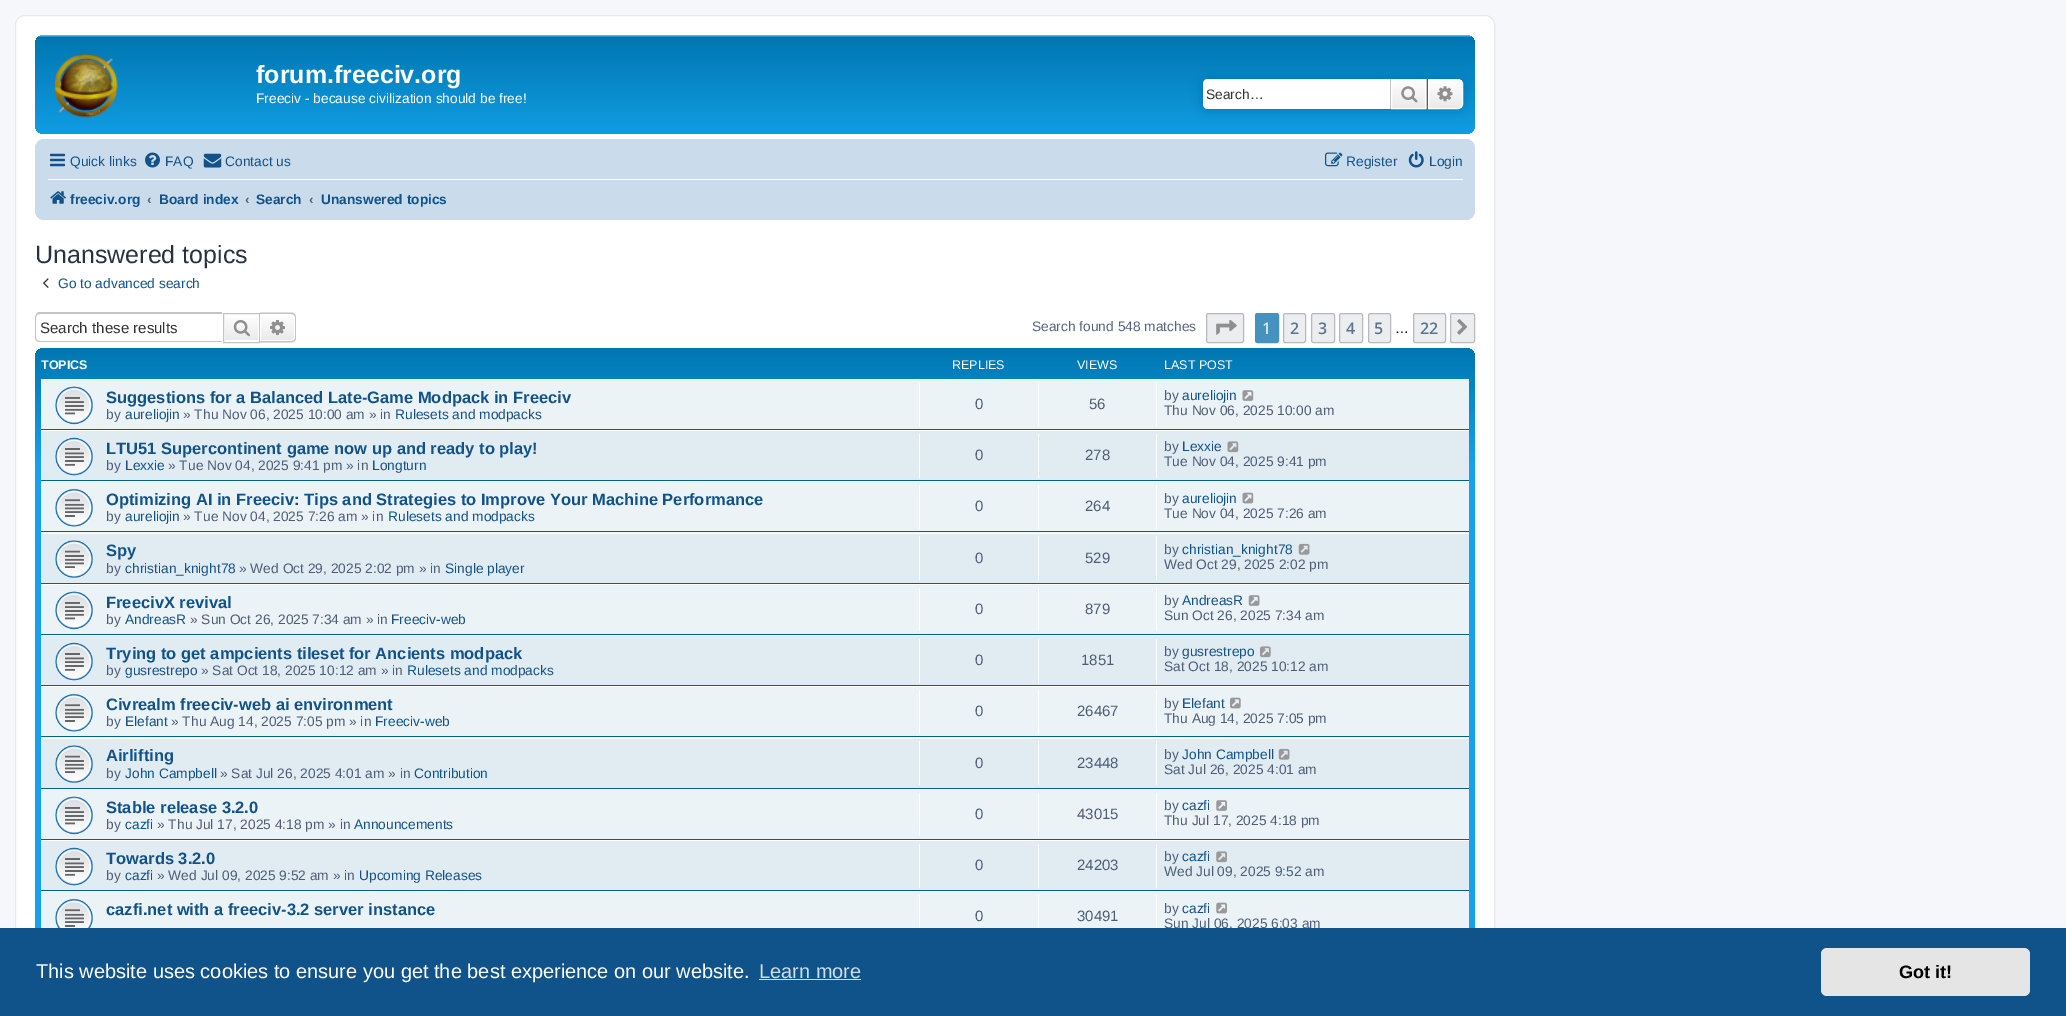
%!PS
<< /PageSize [2066 1016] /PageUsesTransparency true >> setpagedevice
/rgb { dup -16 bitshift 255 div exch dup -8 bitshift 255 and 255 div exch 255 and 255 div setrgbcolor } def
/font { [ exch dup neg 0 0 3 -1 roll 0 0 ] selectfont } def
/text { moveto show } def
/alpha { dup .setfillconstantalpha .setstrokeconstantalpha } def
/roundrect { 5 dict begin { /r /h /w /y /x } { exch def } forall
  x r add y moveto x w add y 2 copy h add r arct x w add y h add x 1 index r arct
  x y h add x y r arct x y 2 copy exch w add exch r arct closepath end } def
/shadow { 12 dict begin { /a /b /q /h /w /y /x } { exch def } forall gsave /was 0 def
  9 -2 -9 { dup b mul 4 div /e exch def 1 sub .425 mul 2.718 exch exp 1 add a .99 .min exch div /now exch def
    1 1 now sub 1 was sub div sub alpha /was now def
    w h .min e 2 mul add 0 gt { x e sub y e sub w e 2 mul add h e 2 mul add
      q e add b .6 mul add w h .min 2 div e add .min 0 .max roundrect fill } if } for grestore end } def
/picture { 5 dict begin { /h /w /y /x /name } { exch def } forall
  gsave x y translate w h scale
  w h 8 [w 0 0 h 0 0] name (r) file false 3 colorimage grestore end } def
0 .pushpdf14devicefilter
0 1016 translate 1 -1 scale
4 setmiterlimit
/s1 { /LiberationSans-Bold 25 font 16#FFFFFF rgb } def
/s2 { /LiberationSans-Regular 13.75 font 16#FFFFFF rgb } def
/s3 { /LiberationSans-Regular 13.75 font 16#333333 rgb } def
/s4 { /LiberationSans-Regular 13.75 font 16#105289 rgb } def
/s5 { /LiberationSans-Bold 13.75 font 16#105289 rgb } def
/s6 { /LiberationSans-Bold 13.75 font 16#536482 rgb } def
/s7 { /LiberationSans-Regular 25 font 16#28313F rgb } def
/s8 { /LiberationSans-Regular 15.1 font 16#333333 rgb } def
/s9 { /LiberationSans-Regular 13.75 font 16#536482 rgb } def
/s10 { /OpenSans-Regular 16 font 16#FFFFFF rgb } def
/s11 { /OpenSans-SemiBold 16 font 16#5C758C rgb } def
/s12 { /LiberationSans-Regular 13.75 font 16#000000 rgb } def
/s13 { /LiberationSans-Bold 12.5 font 16#FFFFFF rgb } def
/s14 { /LiberationSans-Regular 12.5 font 16#FFFFFF rgb } def
/s15 { /LiberationSans-Bold 16.5 font 16#105289 rgb } def
/s16 { /LiberationSans-Regular 13.75 font 16#4C5D77 rgb } def
/s17 { /LiberationSans-Regular 15 font 16#4C5D77 rgb } def
/s18 { /LiberationSans-Regular 20 font 16#FFFFFF rgb } def
/s19 { /LiberationSans-Regular 20 font 16#CFDDE8 rgb } def
/s20 { /LiberationSans-Bold 18 font 16#000000 rgb } def
16#F5F7FA rgb
0 0 2066 1016 rectfill
16#FFFFFF rgb
15.5 15.5 1479 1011 9.5 roundrect gsave fill grestore
16#E6E9ED rgb
stroke
gsave 35 35 1440 99 9 roundrect clip newpath
<< /ShadingType 2 /ColorSpace /DeviceRGB /Coords [755 35 755 150] /Extend [true true] /Function << /FunctionType 3 /Domain [0 1] /Functions [<< /FunctionType 2 /Domain [0 1] /C0 [0.416 0.808 1] /C1 [0 0.463 0.694] /N 1 >> << /FunctionType 2 /Domain [0 1] /C0 [0 0.463 0.694] /C1 [0.071 0.639 0.922] /N 1 >>] /Bounds [0.02] /Encode [0 1 0 1] >> >> shfill grestore
(pic1.raw) 53 53 65 65 picture
s1
(forum.freeciv.org) 256 83 text
s2
(Freeciv - because civilization should be free!) 256 103 text
16#0075B0 rgb
1203 79 260 30 5 6 1 shadow
16#FFFFFF rgb
1208 79 moveto 1390 79 lineto 1390 109 lineto 1208 109 lineto 1205 109 1203 107 1203 104 curveto 1203 84 lineto 1203 81 1205 79 1208 79 curveto closepath fill
s3
(Search…) 1206 99 text
gsave 1392 80 moveto 1425 80 lineto 1425 108 lineto 1392 108 lineto closepath clip newpath
<< /ShadingType 2 /ColorSpace /DeviceRGB /Coords [1409 79 1409 109] /Extend [true true] /Function << /FunctionType 2 /Domain [0 1] /C0 [1 1 1] /C1 [0.914 0.914 0.914] /N 1 >> >> shfill grestore
16#FFFFFF rgb
1391.5 79.5 34 29 rectstroke
16#C7C3BF rgb
1426 79 1 30 rectfill
1390 79 1 30 rectfill
(pic2.raw) 1401 86 17 17 picture
gsave 1428.5 79.5 moveto 1458 79.5 lineto 1460.5 79.5 1462.5 81.5 1462.5 84 curveto 1462.5 104 lineto 1462.5 106.5 1460.5 108.5 1458 108.5 curveto 1428.5 108.5 lineto closepath clip newpath
<< /ShadingType 2 /ColorSpace /DeviceRGB /Coords [1445 79 1445 109] /Extend [true true] /Function << /FunctionType 2 /Domain [0 1] /C0 [1 1 1] /C1 [0.914 0.914 0.914] /N 1 >> >> shfill grestore
16#FFFFFF rgb
1428.5 79.5 moveto 1458 79.5 lineto 1460.5 79.5 1462.5 81.5 1462.5 84 curveto 1462.5 104 lineto 1462.5 106.5 1460.5 108.5 1458 108.5 curveto 1428.5 108.5 lineto closepath stroke
(pic3.raw) 1437 86 16 16 picture
16#CADCEB rgb
35 139 1440 81 9 roundrect fill
(pic4.raw) 50 153 15 14 picture
s4
(Quick links) 70 166 text
(pic5.raw) 145 152 15 16 picture
(FAQ) 165 166 text
(pic6.raw) 203 153 19 15 picture
(Contact us) 225 166 text
(pic7.raw) 1325 152 18 15 picture
(Register) 1346 166 text
(pic8.raw) 1408 151 16 17 picture
(Login) 1429 166 text
16#FFFFFF rgb
48 179 1415 1 rectfill
(pic9.raw) 50 191 16 13 picture
s5
(freeciv.org) 70 204 text
s6
(‹) 147 204 text
s5
(Board index) 159 204 text
s6
(‹) 245 204 text
s5
(Search) 256 204 text
s6
(‹) 309 204 text
s5
(Unanswered topics) 321 204 text
s7
(Unanswered topics) 35 263 text
(pic10.raw) 43 278 6 10 picture
s4
(Go to advanced search) 58 288 text
16#C7C3BF rgb
40 312 moveto 222 312 lineto 222 342 lineto 40 342 lineto 37 342 35 340 35 338 curveto 35 318 lineto 35 315 37 312 40 312 curveto closepath 40 314 moveto 222 314 lineto 222 341 lineto 40 341 lineto 38 341 36 340 36 338 curveto 36 318 lineto 36 315 38 314 40 314 curveto closepath eofill
s8
(Search these results) 40 333 text
gsave 225 317 moveto 258 317 lineto 258 340 lineto 225 340 lineto closepath clip newpath
<< /ShadingType 2 /ColorSpace /DeviceRGB /Coords [241 314 241 341] /Extend [true true] /Function << /FunctionType 2 /Domain [0 1] /C0 [1 1 1] /C1 [0.914 0.914 0.914] /N 1 >> >> shfill grestore
16#C7C3BF rgb
223.5 313.5 36 29 rectstroke
(pic11.raw) 233 320 17 17 picture
gsave 260.5 314.5 moveto 291 314.5 lineto 293 314.5 294.5 316 294.5 318 curveto 294.5 337 lineto 294.5 339 293 340.5 291 340.5 curveto 260.5 340.5 lineto closepath clip newpath
<< /ShadingType 2 /ColorSpace /DeviceRGB /Coords [278 314 278 341] /Extend [true true] /Function << /FunctionType 2 /Domain [0 1] /C0 [1 1 1] /C1 [0.914 0.914 0.914] /N 1 >> >> shfill grestore
16#FFFFFF rgb
260.5 314.5 moveto 291 314.5 lineto 293 314.5 294.5 316 294.5 318 curveto 294.5 337 lineto 294.5 339 293 340.5 291 340.5 curveto 260.5 340.5 lineto closepath stroke
16#C7C3BF rgb
260 312.5 moveto 291 312.5 lineto 294 312.5 296 314.5 296 317.5 curveto 296 337.5 lineto 296 340.5 294 342.5 291 342.5 curveto 260 342.5 lineto closepath 260 314 moveto 291 314 lineto 293.5 314 295 315.5 295 317.5 curveto 295 337.5 lineto 295 339.5 293.5 341 291 341 curveto 260 341 lineto closepath eofill
(pic12.raw) 270 320 15 15 picture
s9
(Search found 548 matches) 1032 331 text
16#ECEDEE rgb
1206.5 313.5 37 29 2 roundrect gsave fill grestore
16#B4BAC0 rgb
stroke
(pic13.raw) 1216 320 21 15 picture
16#4692BF rgb
1255.5 313.5 23 29 2 roundrect gsave fill grestore
stroke
s10
(1) 1262 334 text
16#ECEDEE rgb
1283.5 313.5 22 29 2 roundrect gsave fill grestore
16#B4BAC0 rgb
stroke
s11
(2) 1290 334 text
16#ECEDEE rgb
1311.5 313.5 23 29 2 roundrect gsave fill grestore
16#B4BAC0 rgb
stroke
s11
(3) 1318 334 text
16#ECEDEE rgb
1339.5 313.5 23 29 2 roundrect gsave fill grestore
16#B4BAC0 rgb
stroke
s11
(4) 1346 334 text
16#ECEDEE rgb
1368.5 313.5 22 29 2 roundrect gsave fill grestore
16#B4BAC0 rgb
stroke
s11
(5) 1374 334 text
s12
(…) 1395 333 text
16#ECEDEE rgb
1413.5 313.5 32 29 2 roundrect gsave fill grestore
16#B4BAC0 rgb
stroke
s11
(22) 1420 334 text
16#ECEDEE rgb
1450.5 313.5 24 29 2 roundrect gsave fill grestore
16#B4BAC0 rgb
stroke
(pic14.raw) 1457 319 11 16 picture
gsave 35 348 1440 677 9 roundrect clip newpath
<< /ShadingType 2 /ColorSpace /DeviceRGB /Coords [755 347 755 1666] /Extend [true true] /Function << /FunctionType 3 /Domain [0 1] /Functions [<< /FunctionType 2 /Domain [0 1] /C0 [0 0.463 0.694] /C1 [0.071 0.639 0.922] /N 1 >> << /FunctionType 2 /Domain [0 1] /C0 [0.071 0.639 0.922] /C1 [0.071 0.639 0.922] /N 1 >>] /Bounds [0.09] /Encode [0 1 0 1] >> >> shfill grestore
s13
(TOPICS) 41 369 text
s14
(REPLIES) 952 369 text
(VIEWS) 1077 369 text
(LAST POST) 1164 369 text
16#ECF3F7 rgb
41 380 1428 49 rectfill
16#FFFFFF rgb
41 379 1428 1 rectfill
16#00608F rgb
41 429 1428 1 rectfill
(pic15.raw) 55 386 38 39 picture
s15
(Suggestions for a Balanced Late-Game Modpack in Freeciv) 106 403 text
s16
(by) 106 419 text
s4
(aureliojin) 125 419 text
s16
(» Thu Nov 06, 2025 10:00 am » in) 183 419 text
s4
(Rulesets and modpacks) 395 419 text
16#FFFFFF rgb
919 383 1 43 rectfill
s17
(0) 975 409 text
16#FFFFFF rgb
1038 383 1 43 rectfill
s17
(56) 1089 409 text
16#FFFFFF rgb
1156 383 1 43 rectfill
s16
(by) 1164 400 text
s4
(aureliojin) 1182 400 text
(pic16.raw) 1242 390 12 11 picture
s16
(Thu Nov 06, 2025 10:00 am) 1164 415 text
16#E1EBF2 rgb
41 431 1428 49 rectfill
16#FFFFFF rgb
41 430 1428 1 rectfill
16#00608F rgb
41 480 1428 1 rectfill
(pic17.raw) 55 437 38 39 picture
s15
(LTU51 Supercontinent game now up and ready to play!) 106 454 text
s16
(by) 106 470 text
s4
(Lexxie) 125 470 text
s16
(» Tue Nov 04, 2025 9:41 pm » in) 168 470 text
s4
(Longturn) 372 470 text
16#FFFFFF rgb
919 434 1 44 rectfill
s17
(0) 975 460 text
16#FFFFFF rgb
1038 434 1 44 rectfill
s17
(278) 1085 460 text
16#FFFFFF rgb
1156 434 1 44 rectfill
s16
(by) 1164 451 text
s4
(Lexxie) 1182 451 text
(pic18.raw) 1227 441 12 12 picture
s16
(Tue Nov 04, 2025 9:41 pm) 1164 466 text
16#ECF3F7 rgb
41 482 1428 51 rectfill
16#FFFFFF rgb
41 481 1428 1 rectfill
16#00608F rgb
41 531 1428 1 rectfill
(pic19.raw) 55 488 38 39 picture
s15
(Optimizing AI in Freeciv: Tips and Strategies to Improve Your Machine Performance) 106 505 text
s16
(by) 106 521 text
s4
(aureliojin) 125 521 text
s16
(» Tue Nov 04, 2025 7:26 am » in) 183 521 text
s4
(Rulesets and modpacks) 388 521 text
16#FFFFFF rgb
919 485 1 44 rectfill
s17
(0) 975 511 text
16#FFFFFF rgb
1038 485 1 44 rectfill
s17
(264) 1085 511 text
16#FFFFFF rgb
1156 485 1 44 rectfill
s16
(by) 1164 503 text
s4
(aureliojin) 1182 503 text
(pic20.raw) 1242 492 12 12 picture
s16
(Tue Nov 04, 2025 7:26 am) 1164 518 text
16#E1EBF2 rgb
41 534 1428 49 rectfill
16#FFFFFF rgb
41 533 1428 1 rectfill
16#00608F rgb
41 583 1428 1 rectfill
(pic21.raw) 55 540 38 38 picture
s15
(Spy) 106 556 text
s16
(by) 106 573 text
s4
(christian_knight78) 125 573 text
s16
(» Wed Oct 29, 2025 2:02 pm » in) 239 573 text
s4
(Single player) 445 573 text
16#FFFFFF rgb
919 536 1 44 rectfill
s17
(0) 975 563 text
16#FFFFFF rgb
1038 536 1 44 rectfill
s17
(529) 1085 563 text
16#FFFFFF rgb
1156 536 1 44 rectfill
s16
(by) 1164 554 text
s4
(christian_knight78) 1182 554 text
(pic22.raw) 1298 543 12 12 picture
s16
(Wed Oct 29, 2025 2:02 pm) 1164 569 text
16#ECF3F7 rgb
41 585 1428 49 rectfill
16#FFFFFF rgb
41 584 1428 1 rectfill
16#00608F rgb
41 634 1428 1 rectfill
(pic15.raw) 55 591 38 39 picture
s15
(FreecivX revival) 106 608 text
s16
(by) 106 624 text
s4
(AndreasR) 125 624 text
s16
(» Sun Oct 26, 2025 7:34 am » in) 190 624 text
s4
(Freeciv-web) 391 624 text
16#FFFFFF rgb
919 588 1 43 rectfill
s17
(0) 975 614 text
16#FFFFFF rgb
1038 588 1 43 rectfill
s17
(879) 1085 614 text
16#FFFFFF rgb
1156 588 1 43 rectfill
s16
(by) 1164 605 text
s4
(AndreasR) 1182 605 text
(pic23.raw) 1248 595 12 11 picture
s16
(Sun Oct 26, 2025 7:34 am) 1164 620 text
16#E1EBF2 rgb
41 636 1428 49 rectfill
16#FFFFFF rgb
41 635 1428 1 rectfill
16#00608F rgb
41 685 1428 1 rectfill
(pic17.raw) 55 642 38 39 picture
s15
(Trying to get ampcients tileset for Ancients modpack) 106 659 text
s16
(by) 106 675 text
s4
(gusrestrepo) 125 675 text
s16
(» Sat Oct 18, 2025 10:12 am » in) 201 675 text
s4
(Rulesets and modpacks) 407 675 text
16#FFFFFF rgb
919 639 1 44 rectfill
s17
(0) 975 665 text
16#FFFFFF rgb
1038 639 1 44 rectfill
s17
(1851) 1081 665 text
16#FFFFFF rgb
1156 639 1 44 rectfill
s16
(by) 1164 656 text
s4
(gusrestrepo) 1182 656 text
(pic24.raw) 1260 646 11 12 picture
s16
(Sat Oct 18, 2025 10:12 am) 1164 671 text
16#ECF3F7 rgb
41 687 1428 51 rectfill
16#FFFFFF rgb
41 686 1428 1 rectfill
16#00608F rgb
41 736 1428 1 rectfill
(pic19.raw) 55 693 38 39 picture
s15
(Civrealm freeciv-web ai environment) 106 710 text
s16
(by) 106 726 text
s4
(Elefant) 125 726 text
s16
(» Thu Aug 14, 2025 7:05 pm » in) 171 726 text
s4
(Freeciv-web) 375 726 text
16#FFFFFF rgb
919 690 1 44 rectfill
s17
(0) 975 716 text
16#FFFFFF rgb
1038 690 1 44 rectfill
s17
(26467) 1077 716 text
16#FFFFFF rgb
1156 690 1 44 rectfill
s16
(by) 1164 708 text
s4
(Elefant) 1182 708 text
(pic25.raw) 1230 697 11 12 picture
s16
(Thu Aug 14, 2025 7:05 pm) 1164 723 text
16#E1EBF2 rgb
41 739 1428 49 rectfill
16#FFFFFF rgb
41 738 1428 1 rectfill
16#00608F rgb
41 788 1428 1 rectfill
(pic21.raw) 55 745 38 38 picture
s15
(Airlifting) 106 761 text
s16
(by) 106 778 text
s4
(John Campbell) 125 778 text
s16
(» Sat Jul 26, 2025 4:01 am » in) 220 778 text
s4
(Contribution) 414 778 text
16#FFFFFF rgb
919 741 1 44 rectfill
s17
(0) 975 768 text
16#FFFFFF rgb
1038 741 1 44 rectfill
s17
(23448) 1077 768 text
16#FFFFFF rgb
1156 741 1 44 rectfill
s16
(by) 1164 759 text
s4
(John Campbell) 1182 759 text
(pic22.raw) 1278 748 12 12 picture
s16
(Sat Jul 26, 2025 4:01 am) 1164 774 text
16#ECF3F7 rgb
41 790 1428 49 rectfill
16#FFFFFF rgb
41 789 1428 1 rectfill
16#00608F rgb
41 839 1428 1 rectfill
(pic15.raw) 55 796 38 39 picture
s15
(Stable release 3.2.0) 106 813 text
s16
(by) 106 829 text
s4
(cazfi) 125 829 text
s16
(» Thu Jul 17, 2025 4:18 pm » in) 157 829 text
s4
(Announcements) 354 829 text
16#FFFFFF rgb
919 793 1 43 rectfill
s17
(0) 975 819 text
16#FFFFFF rgb
1038 793 1 43 rectfill
s17
(43015) 1077 819 text
16#FFFFFF rgb
1156 793 1 43 rectfill
s16
(by) 1164 810 text
s4
(cazfi) 1182 810 text
(pic26.raw) 1216 800 11 11 picture
s16
(Thu Jul 17, 2025 4:18 pm) 1164 825 text
16#E1EBF2 rgb
41 841 1428 49 rectfill
16#FFFFFF rgb
41 840 1428 1 rectfill
16#00608F rgb
41 890 1428 1 rectfill
(pic17.raw) 55 847 38 39 picture
s15
(Towards 3.2.0) 106 864 text
s16
(by) 106 880 text
s4
(cazfi) 125 880 text
s16
(» Wed Jul 09, 2025 9:52 am » in) 157 880 text
s4
(Upcoming Releases) 359 880 text
16#FFFFFF rgb
919 844 1 44 rectfill
s17
(0) 975 870 text
16#FFFFFF rgb
1038 844 1 44 rectfill
s17
(24203) 1077 870 text
16#FFFFFF rgb
1156 844 1 44 rectfill
s16
(by) 1164 861 text
s4
(cazfi) 1182 861 text
(pic27.raw) 1216 851 11 12 picture
s16
(Wed Jul 09, 2025 9:52 am) 1164 876 text
16#ECF3F7 rgb
41 892 1428 36 rectfill
16#FFFFFF rgb
41 891 1428 1 rectfill
(pic28.raw) 55 898 38 30 picture
s15
(cazfi.net with a freeciv-3.2 server instance) 106 915 text
16#FFFFFF rgb
919 895 1 33 rectfill
s17
(0) 975 921 text
16#FFFFFF rgb
1038 895 1 33 rectfill
s17
(30491) 1077 921 text
16#FFFFFF rgb
1156 895 1 33 rectfill
s16
(by) 1164 913 text
s4
(cazfi) 1182 913 text
(pic29.raw) 1216 902 11 12 picture
s16
(Sun Jul 06, 2025 6:03 am) 1164 928 text
16#0F538A rgb
0 928 2066 88 rectfill
s18
(This website uses cookies to ensure you get the best experience on our website.) 36 978 text
s19
(Learn more) 759 978 text
759 979 102 1 rectfill
16#E5E5E5 rgb
1821 948 209 48 6 roundrect fill
s20
(Got it!) 1899 978 text
.poppdf14devicefilter showpage
